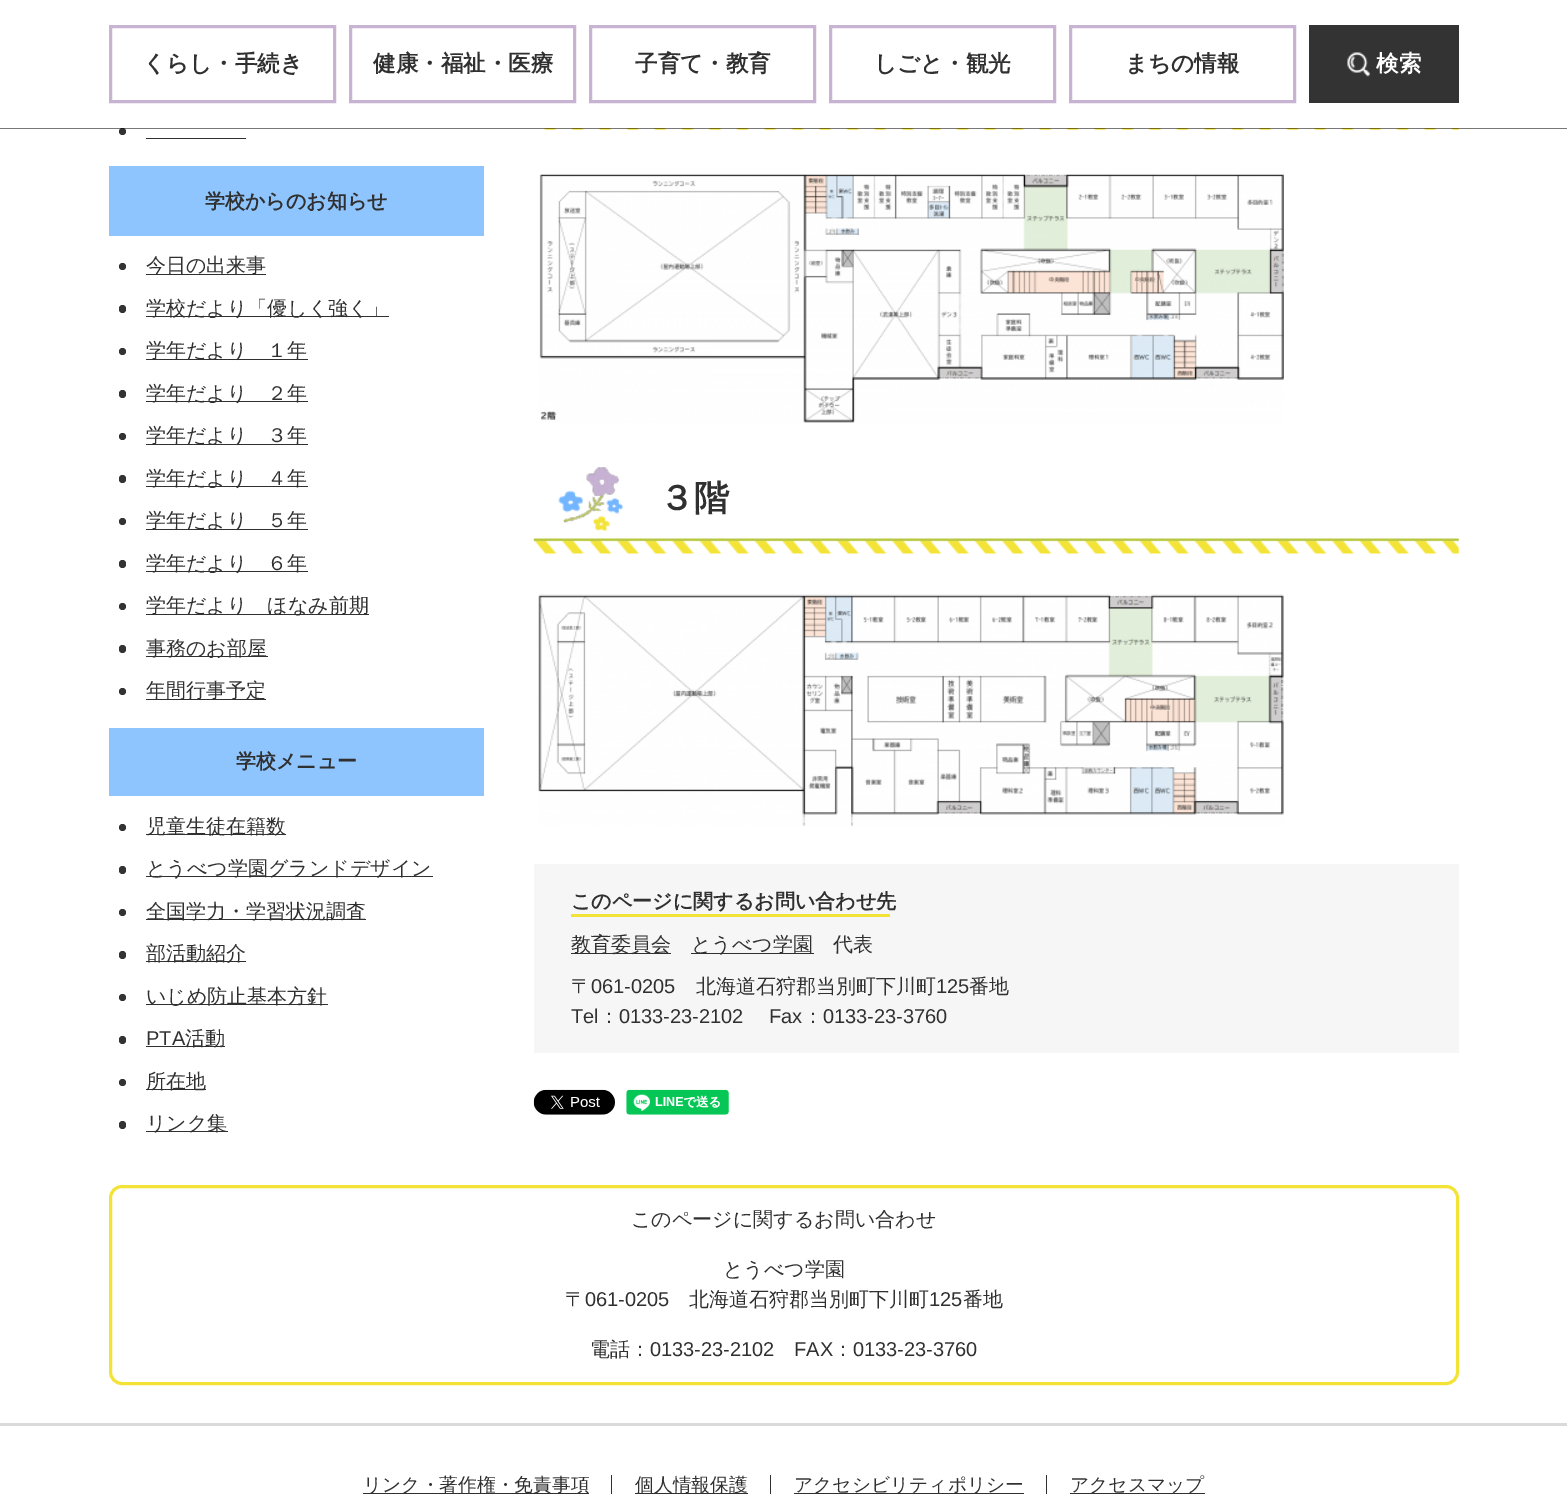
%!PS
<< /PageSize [1567 1498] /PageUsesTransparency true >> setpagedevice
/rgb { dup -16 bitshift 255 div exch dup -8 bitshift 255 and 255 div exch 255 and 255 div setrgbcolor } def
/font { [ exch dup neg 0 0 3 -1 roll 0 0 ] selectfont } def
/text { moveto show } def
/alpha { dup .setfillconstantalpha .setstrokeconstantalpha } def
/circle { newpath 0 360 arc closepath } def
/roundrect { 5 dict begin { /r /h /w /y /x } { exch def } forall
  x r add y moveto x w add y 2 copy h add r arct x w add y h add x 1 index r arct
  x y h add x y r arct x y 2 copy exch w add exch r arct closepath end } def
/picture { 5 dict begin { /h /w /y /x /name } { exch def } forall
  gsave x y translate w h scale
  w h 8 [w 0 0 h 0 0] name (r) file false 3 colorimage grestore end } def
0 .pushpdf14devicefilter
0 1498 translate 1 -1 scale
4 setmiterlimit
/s1 { /WenQuanYiZenHei-Bold 22.5 font 16#303030 rgb } def
/s2 { /WenQuanYiZenHei-Bold 22.5 font 16#FFFFFF rgb } def
/s3 { /WenQuanYiZenHei-Bold 20 font 16#303030 rgb } def
/s4 { /WenQuanYiZenHei-Medium 20 font 16#303030 rgb } def
/s5 { /LiberationSans-Regular 20 font 16#303030 rgb } def
/s6 { /WenQuanYiZenHei-Bold 35 font 16#303030 rgb } def
/s7 { /WenQuanYiZenHei-Medium 18.75 font 16#303030 rgb } def
16#FFFFFF rgb
0 0 1567 1498 rectfill
16#333333 rgb
122.5 131.5 3.5 circle fill
(pic2.raw) 543 128 916 2 picture
0.53 alpha
16#000000 rgb
0 128 moveto 0 129 lineto 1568 129 lineto 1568 1 lineto 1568 128 lineto closepath fill
1 alpha
16#C9B3D3 rgb
3 setlinewidth
110.5 26.5 224 75 rectstroke
s1
(くらし・手続き) 143 71 text
16#C9B3D3 rgb
350.5 26.5 224 75 rectstroke
s1
(健康・福祉・医療) 373 71 text
16#C9B3D3 rgb
590.5 26.5 224 75 rectstroke
s1
(子育て・教育) 635 71 text
16#C9B3D3 rgb
830.5 26.5 224 75 rectstroke
s1
(しごと・観光) 874 71 text
16#C9B3D3 rgb
1070.5 26.5 224 75 rectstroke
s1
(まちの情報) 1125 71 text
16#333333 rgb
1309 25 150 78 rectfill
(pic1.raw) 1347 52 23 25 picture
s2
(検索) 1376 71 text
16#303030 rgb
146 138 100 1 rectfill
16#8FC5FF rgb
109 166 375 70 rectfill
s3
(学校からのお知らせ) 205 208 text
16#333333 rgb
122.5 266.5 3.5 circle fill
16#303030 rgb
146 274 120 1 rectfill
s4
(今日の出来事) 146 272 text
16#333333 rgb
119 305 7 8 3.5 roundrect fill
16#303030 rgb
146 316 243 1 rectfill
(学校だより「優しく強く」) 146 315 text
16#333333 rgb
122.5 351.5 3.5 circle fill
16#303030 rgb
146 359 162 1 rectfill
(学年だより　１年) 146 357 text
16#333333 rgb
119 390 7 8 3.5 roundrect fill
16#303030 rgb
146 401 162 1 rectfill
(学年だより　２年) 146 400 text
16#333333 rgb
122.5 436.5 3.5 circle fill
16#303030 rgb
146 444 162 1 rectfill
(学年だより　３年) 146 442 text
16#333333 rgb
119 475 7 8 3.5 roundrect fill
16#303030 rgb
146 486 162 1 rectfill
(学年だより　４年) 146 485 text
16#333333 rgb
122.5 521.5 3.5 circle fill
16#303030 rgb
146 529 162 1 rectfill
(学年だより　５年) 146 527 text
16#333333 rgb
119 560 7 8 3.5 roundrect fill
16#303030 rgb
146 571 162 1 rectfill
(学年だより　６年) 146 570 text
16#333333 rgb
122.5 606.5 3.5 circle fill
16#303030 rgb
146 614 223 1 rectfill
(学年だより　ほなみ前期) 146 612 text
16#333333 rgb
119 645 7 8 3.5 roundrect fill
16#303030 rgb
146 656 122 1 rectfill
(事務のお部屋) 146 655 text
16#333333 rgb
122.5 691.5 3.5 circle fill
16#303030 rgb
146 699 120 1 rectfill
(年間行事予定) 146 697 text
16#8FC5FF rgb
109 728 375 68 rectfill
s3
(学校メニュー) 236 768 text
16#333333 rgb
122.5 827.5 3.5 circle fill
16#303030 rgb
146 834 140 1 rectfill
s4
(児童生徒在籍数) 146 833 text
16#333333 rgb
119 866 7 8 3.5 roundrect fill
16#303030 rgb
146 876 287 1 rectfill
(とうべつ学園グランドデザイン) 146 875 text
16#333333 rgb
122.5 912.5 3.5 circle fill
16#303030 rgb
146 919 220 1 rectfill
(全国学力・学習状況調査) 146 918 text
16#333333 rgb
119 951 7 8 3.5 roundrect fill
16#303030 rgb
146 961 100 1 rectfill
(部活動紹介) 146 960 text
16#333333 rgb
122.5 997.5 3.5 circle fill
16#303030 rgb
146 1004 182 1 rectfill
(いじめ防止基本方針) 146 1003 text
16#333333 rgb
119 1036 7 8 3.5 roundrect fill
s5
(PTA) 146 1045 text
146 1046 79 1 rectfill
s4
(活動) 185 1045 text
16#333333 rgb
122.5 1082.5 3.5 circle fill
16#303030 rgb
146 1089 60 1 rectfill
(所在地) 146 1088 text
16#333333 rgb
119 1121 7 8 3.5 roundrect fill
16#303030 rgb
146 1131 82 1 rectfill
(リンク集) 146 1130 text
(pic3.raw) 539 174 745 249 picture
(pic4.raw) 558 467 65 64 picture
s6
(３階) 659 510 text
(pic5.raw) 533 538 926 16 picture
(pic6.raw) 538 594 746 232 picture
16#F6F6F6 rgb
534 864 925 189 rectfill
s3
(このページに関するお問い合わせ先) 571 908 text
16#F4E337 rgb
571 914 319 3 rectfill
16#303030 rgb
571 953 100 1 rectfill
s4
(教育委員会) 571 951 text
691 953 123 1 rectfill
(とうべつ学園) 691 951 text
(代表) 833 951 text
(〒) 571 993 text
s5
(061-0205) 591 993 text
s4
(北海道石狩郡当別町下川町) 696 993 text
s5
(125) 936 993 text
s4
(番地) 969 993 text
s5
(Tel) 571 1023 text
s4
(：) 599 1023 text
s5
(0133-23-2102) 619 1023 text
(Fax) 769 1023 text
s4
(：) 803 1023 text
s5
(0133-23-3760) 823 1023 text
(pic7.raw) 533 1089 82 26 picture
(pic8.raw) 626 1089 103 26 picture
16#F4E337 rgb
110.5 1186.5 1347 197 11.5 roundrect stroke
s4
(このページに関するお問い合わせ) 631 1226 text
(とうべつ学園) 723 1276 text
(〒) 565 1306 text
s5
(061-0205) 585 1306 text
s4
(北海道石狩郡当別町下川町) 689 1306 text
s5
(125) 929 1306 text
s4
(番地) 963 1306 text
(電話：) 590 1356 text
s5
(0133-23-2102) 650 1356 text
(FAX) 794 1356 text
s4
(：) 833 1356 text
s5
(0133-23-3760) 853 1356 text
16#DADADA rgb
0 1423 1567 3 rectfill
16#303030 rgb
611 1475 1 19 rectfill
363 1493 226 1 rectfill
s7
(リンク・著作権・免責事項) 363 1491 text
770 1475 1 19 rectfill
635 1493 113 1 rectfill
(個人情報保護) 635 1491 text
1046 1475 1 19 rectfill
794 1493 230 1 rectfill
(アクセシビリティポリシー) 794 1491 text
1070 1493 135 1 rectfill
(アクセスマップ) 1070 1491 text
.poppdf14devicefilter showpage
